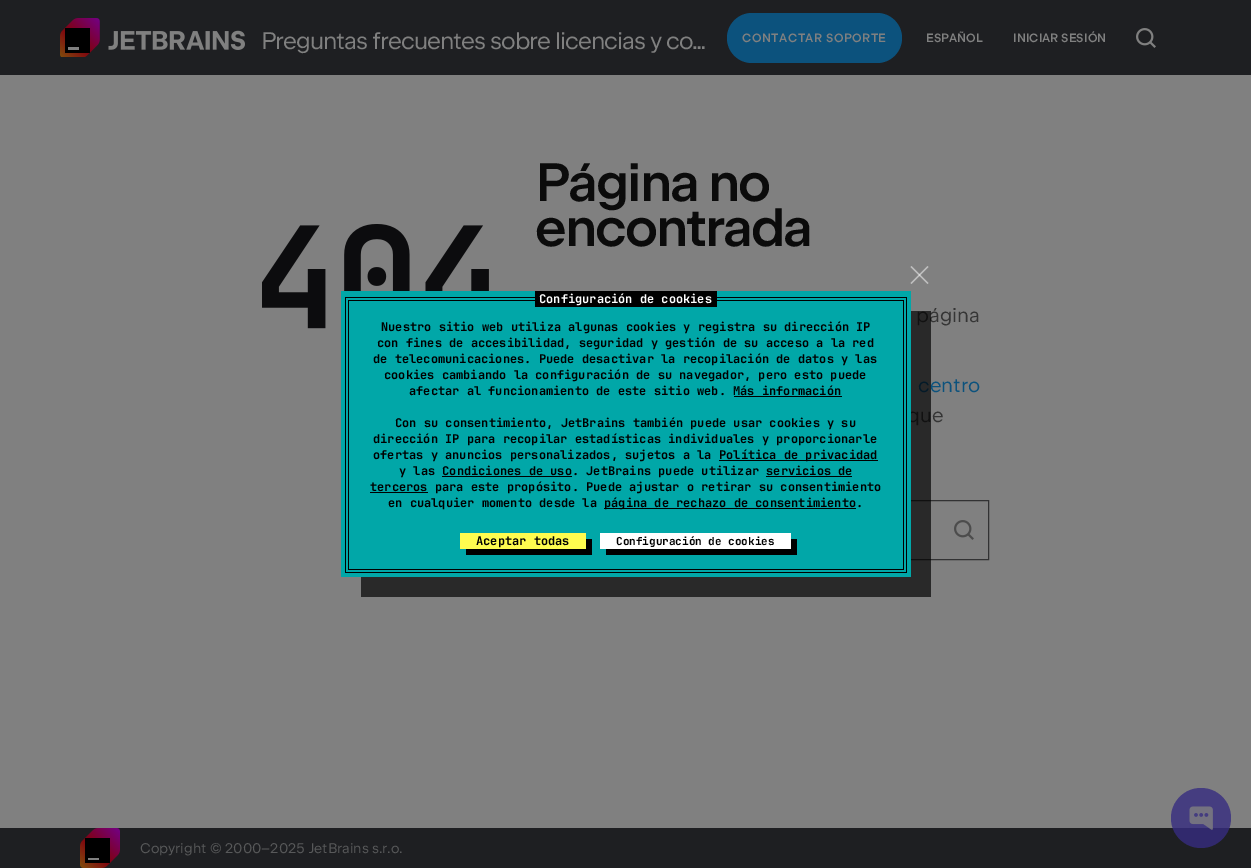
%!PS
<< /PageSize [1251 868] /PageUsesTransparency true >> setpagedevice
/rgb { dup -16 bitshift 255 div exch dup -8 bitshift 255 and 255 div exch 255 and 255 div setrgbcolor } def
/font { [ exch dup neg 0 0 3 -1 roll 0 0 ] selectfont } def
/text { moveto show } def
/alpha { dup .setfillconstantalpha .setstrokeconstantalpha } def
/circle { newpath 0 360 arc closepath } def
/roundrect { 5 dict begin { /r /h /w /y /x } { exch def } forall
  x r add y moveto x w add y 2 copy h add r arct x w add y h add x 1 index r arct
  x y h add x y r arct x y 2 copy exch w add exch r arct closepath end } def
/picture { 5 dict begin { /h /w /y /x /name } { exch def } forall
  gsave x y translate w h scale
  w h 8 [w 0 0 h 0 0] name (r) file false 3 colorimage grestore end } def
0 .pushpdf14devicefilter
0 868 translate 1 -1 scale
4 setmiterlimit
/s1 { /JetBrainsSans-SemiBold 12 font 16#808080 rgb } def
/s2 { /JetBrainsSans-Regular 20 font 16#353535 rgb } def
/s3 { /JetBrainsSans-Regular 20 font 16#0C527D rgb } def
/s4 { /JetBrainsSans-Regular 14 font 16#58595A rgb } def
/s5 { /JetBrainsMono-Bold 12 font 16#FFFFFF rgb } def
/s6 { /JetBrainsMono-Bold 12 font 16#000000 rgb } def
/s7 { /JetBrainsMono-Bold 11 font 16#000000 rgb } def
16#808080 rgb
0 0 1251 868 rectfill
16#1E1F22 rgb
0 0 1251 75 rectfill
(pic1.raw) 60 18 185 39 picture
/JetBrainsSans-Regular 24 font
16#808080 rgb
261 49 moveto -1 0 (Preguntas frecuentes sobre licencias y co…) ashow
16#0C527D rgb
727 13 175 50 25 roundrect fill
/JetBrainsSans-SemiBold 12 font
16#808080 rgb
742 42 moveto 0.5 0 (CONTACTAR SOPORTE) ashow
(ESPAÑOL) 926 42 text
(INICIAR SESIÓN) 1013 42 text
(pic2.raw) 1136 28 20 20 picture
(pic3.raw) 262 224 227 105 picture
/JetBrainsSans-SemiBold 54 font
16#0B0B0B rgb
535 201 moveto -2 0 (Página no) ashow
535 246 moveto -2 0 (encontrada) ashow
s2
(página) 916 322 text
s3
(centro) 918 392 text
s2
(que) 907 422 text
16#323233 rgb
535.5 500.5 453 59 rectstroke
(pic4.raw) 954 520 20 20 picture
16#1E1F22 rgb
0 828 1251 40 rectfill
(pic5.raw) 80 828 40 40 picture
s4
(Copyright © 2000–2025 JetBrains s.r.o.) 140 853 text
0.68 alpha
16#000000 rgb
361 577 moveto 361 597 lineto 931 597 lineto 931 311 lineto 911 311 lineto 911 577 lineto closepath fill
1 alpha
16#01A7A8 rgb
341 291 570 286 rectfill
16#BFBFBF rgb
910.5 283 moveto 927.5 266 lineto 928.5 267 lineto 911.5 284 lineto closepath fill
0.5 alpha
16#FFFFFF rgb
911.5 266 moveto 928.5 283 lineto 927.5 284 lineto 910.5 267 lineto closepath fill
1 alpha
16#000000 rgb
348 300 556 1 rectfill
903 300 1 270 rectfill
348 300 1 233 rectfill
345 297 562 1 rectfill
535 291 182 16 rectfill
s5
(Configuración de cookies) 539 303 text
16#000000 rgb
906 297 1 276 rectfill
345 297 1 235 rectfill
(Nuestro sitio web utiliza algunas cookies y registra su dirección IP) 381 331 text
(con fines de accesibilidad, seguridad y gestión de su acceso a la red) 377 347 text
(de telecomunicaciones. Puede desactivar la recopilación de datos y las) 373 363 text
(cookies cambiando la configuración de su navegador, pero esto puede) 384 379 text
(afectar al funcionamiento de este sitio web. Más información) 409 395 text
734 396 108 1 rectfill
(Con su consentimiento, JetBrains también puede usar cookies y su) 395 427 text
(dirección IP para recopilar estadísticas individuales y proporcionarle) 373 443 text
(ofertas y anuncios personalizados, sujetos a la) 373 459 text
719 460 159 1 rectfill
(Política de privacidad) 719 459 text
(y las Condiciones de uso. JetBrains puede utilizar servicios de) 399 475 text
442 476 130 1 rectfill
370 492 58 1 rectfill
(terceros para este propósito. Puede ajustar o retirar su consentimiento) 370 491 text
766 476 86 1 rectfill
(en cualquier momento desde la) 388 507 text
604 508 252 1 rectfill
(página de rechazo de consentimiento.) 604 507 text
348 569 556 1 rectfill
348 533 1 37 rectfill
345 572 562 1 rectfill
345 532 1 41 rectfill
466 549 moveto 466 555 lineto 592 555 lineto 592 539 lineto 586 539 lineto 586 549 lineto closepath fill
16#FEFC4F rgb
460 533 126 16 rectfill
s6
(Aceptar todas) 476 545 text
606 549 moveto 606 555 lineto 797 555 lineto 797 539 lineto 791 539 lineto 791 549 lineto closepath fill
16#FFFFFF rgb
600 533 191 16 rectfill
s7
(Configuración de cookies) 616 545 text
0.8 alpha
16#362C80 rgb
1201 818 30 circle fill
1 alpha
(pic6.raw) 1189 806 24 24 picture
.poppdf14devicefilter showpage
